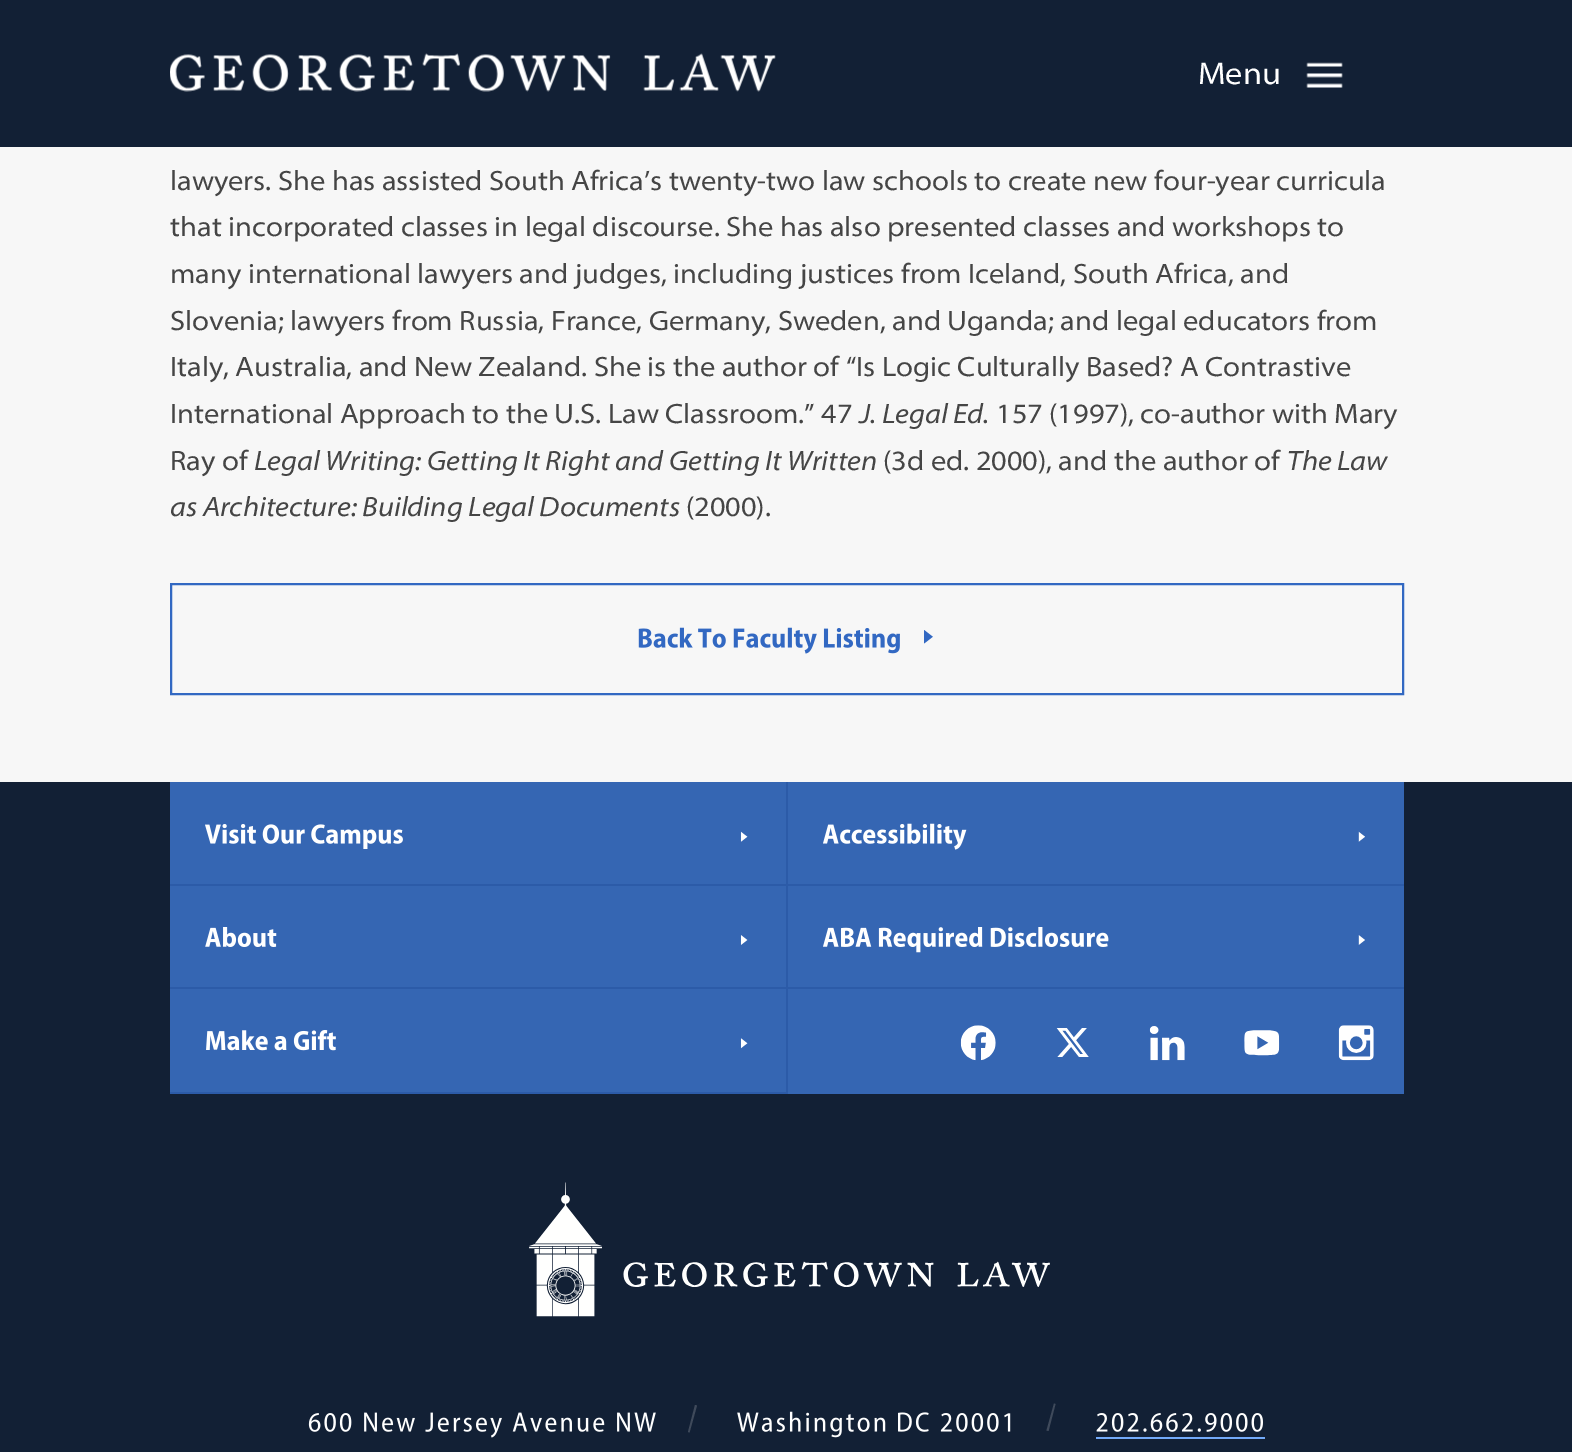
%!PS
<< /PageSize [1572 1452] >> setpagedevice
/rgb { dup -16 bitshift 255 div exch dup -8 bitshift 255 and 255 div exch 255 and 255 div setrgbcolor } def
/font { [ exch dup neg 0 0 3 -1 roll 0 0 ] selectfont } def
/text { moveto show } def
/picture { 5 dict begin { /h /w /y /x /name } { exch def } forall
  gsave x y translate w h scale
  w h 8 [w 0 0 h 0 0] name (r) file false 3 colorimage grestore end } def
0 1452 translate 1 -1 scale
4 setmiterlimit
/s1 { /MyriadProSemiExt-Regular 31.5 font 16#FFFFFF rgb } def
/s2 { /MyriadProSemiExt-Regular 28 font 16#454545 rgb } def
/s3 { /MyriadProSemiExt-Italic 28 font 16#454545 rgb } def
16#F7F7F7 rgb
0 0 1572 1452 rectfill
16#122035 rgb
0 0 1572 147 rectfill
(pic1.raw) 170 53 606 39 picture
s1
(Menu) 1198 84 text
(pic2.raw) 1306 62 37 26 picture
s2
(lawyers. She has assisted South Africa’s twenty-two law schools to create new four-year curricula) 170 190 text
(that incorporated classes in legal discourse. She has also presented classes and workshops to) 170 236 text
(many international lawyers and judges, including justices from Iceland, South Africa, and) 170 283 text
(Slovenia; lawyers from Russia, France, Germany, Sweden, and Uganda; and legal educators from) 170 330 text
(Italy, Australia, and New Zealand. She is the author of “Is Logic Culturally Based? A Contrastive) 170 376 text
(International Approach to the U.S. Law Classroom.” 47) 170 423 text
s3
(J. Legal Ed.) 859 423 text
s2
(157 \(1997\), co-author with Mary) 996 423 text
(Ray of) 170 470 text
s3
(Legal Writing: Getting It Right and Getting It Written) 254 470 text
s2
(\(3d ed. 2000\), and the author of) 883 470 text
s3
(The Law) 1287 470 text
(as Architecture: Building Legal Documents) 170 516 text
s2
(\(2000\).) 686 516 text
16#3268C2 rgb
2 setlinewidth
171 584 1232 110 rectstroke
(pic3.raw) 638 627 262 27 picture
(pic4.raw) 924 630 9 14 picture
16#122035 rgb
0 782 1572 670 rectfill
16#3566B3 rgb
170 782 1234 312 rectfill
16#2C5BA8 rgb
786 782 2 312 rectfill
170 884 1234 2 rectfill
(pic5.raw) 205 824 198 25 picture
(pic6.raw) 740 831 8 11 picture
(pic7.raw) 823 823 144 27 picture
(pic8.raw) 1358 831 7 11 picture
170 987 1234 2 rectfill
(pic9.raw) 205 927 72 20 picture
(pic10.raw) 740 935 8 10 picture
(pic11.raw) 823 927 286 26 picture
(pic12.raw) 1358 935 7 10 picture
170 1092 618 2 rectfill
(pic13.raw) 206 1030 130 21 picture
(pic14.raw) 740 1038 8 11 picture
(pic15.raw) 960 1025 36 36 picture
(pic16.raw) 1056 1028 33 29 picture
(pic17.raw) 1149 1026 36 35 picture
(pic18.raw) 1244 1030 36 26 picture
(pic19.raw) 1338 1025 36 36 picture
(pic20.raw) 529 1182 521 135 picture
(pic21.raw) 308 1412 348 26 picture
16#3F4A5B rgb
695 1405 moveto 697 1405.5 lineto 689.5 1432.5 lineto 688 1432 lineto closepath fill
(pic22.raw) 737 1411 149 27 picture
(pic23.raw) 898 1412 31 20 picture
(pic24.raw) 940 1413 71 19 picture
1054 1403.5 moveto 1055.5 1404 lineto 1048.5 1431 lineto 1046.5 1430.5 lineto closepath fill
16#73AAF9 rgb
1096 1437 169 2 rectfill
(pic25.raw) 1096 1413 167 19 picture
showpage
